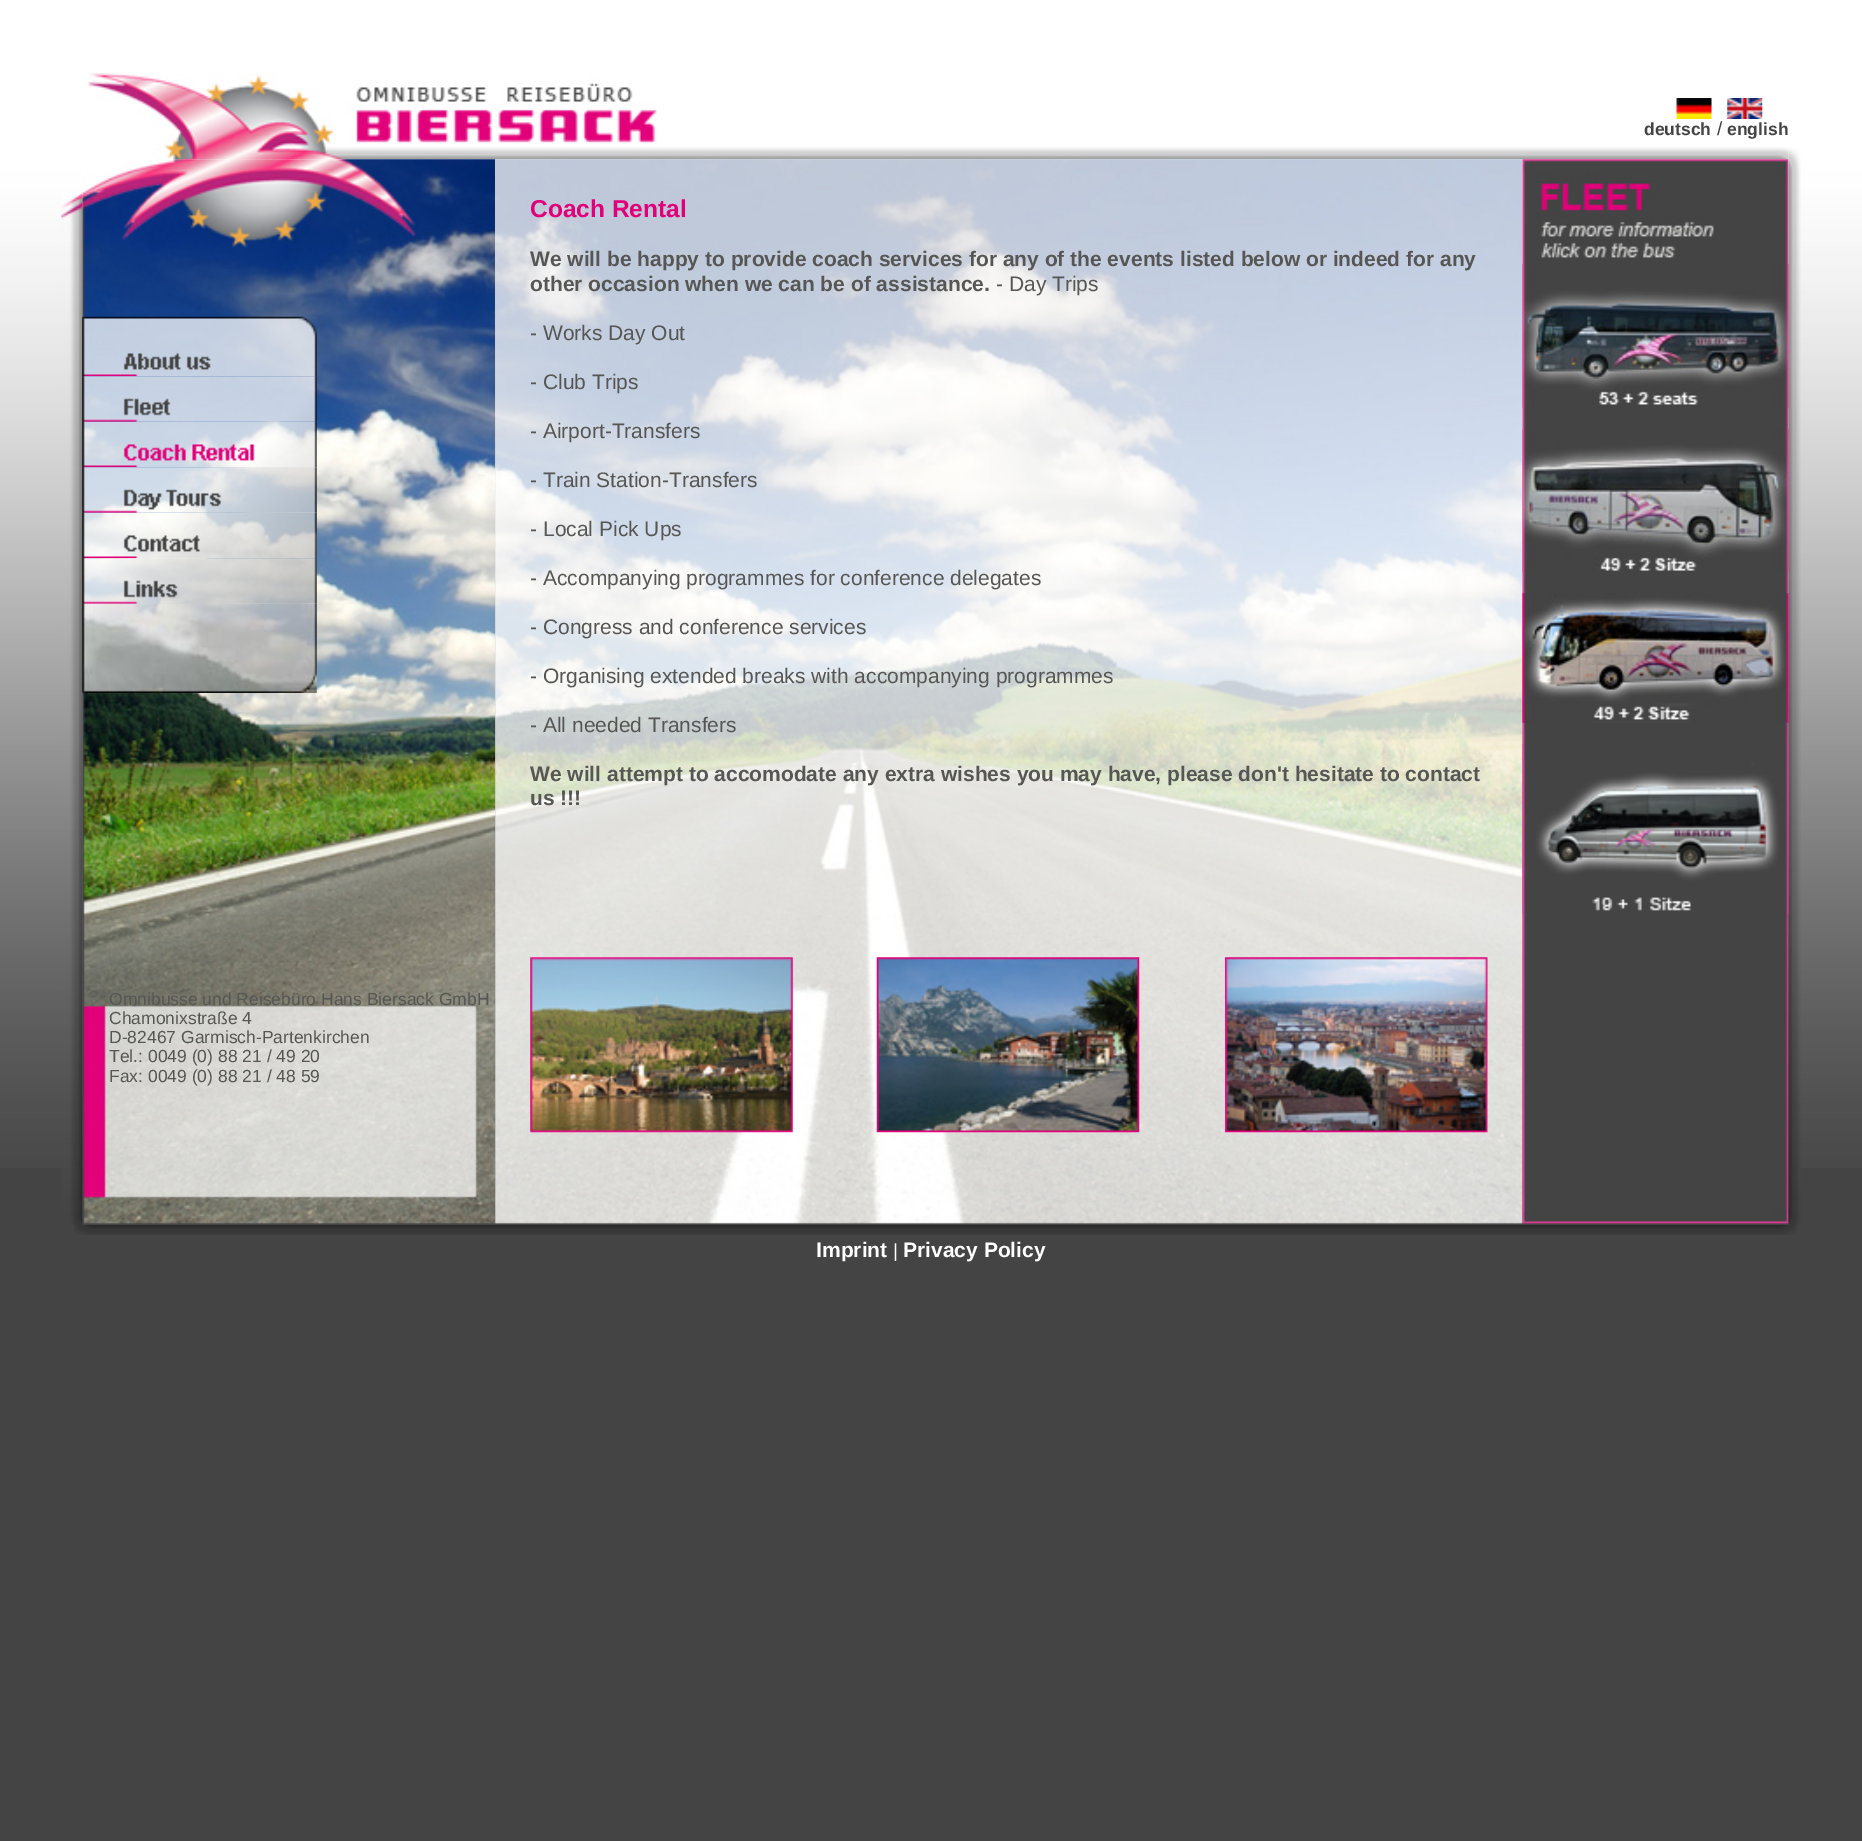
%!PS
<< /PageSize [1862 1841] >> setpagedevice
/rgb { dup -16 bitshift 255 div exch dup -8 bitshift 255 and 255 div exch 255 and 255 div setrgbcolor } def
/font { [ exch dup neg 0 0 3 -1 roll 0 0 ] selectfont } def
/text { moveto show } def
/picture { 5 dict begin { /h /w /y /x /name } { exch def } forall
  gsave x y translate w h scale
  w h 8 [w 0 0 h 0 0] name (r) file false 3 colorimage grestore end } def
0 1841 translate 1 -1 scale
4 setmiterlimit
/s1 { /LiberationSans-Bold 17.5 font 16#444444 rgb } def
/s2 { /LiberationSans-Regular 19 font 16#3E3D3B rgb } def
/s3 { /LiberationSans-Bold 24.5 font 16#E2007A rgb } def
/s4 { /LiberationSans-Bold 21 font 16#565654 rgb } def
/s5 { /LiberationSans-Regular 21 font 16#565654 rgb } def
/s6 { /LiberationSans-Regular 17.5 font 16#565654 rgb } def
/s7 { /LiberationSans-Bold 21 font 16#FFFFFF rgb } def
/s8 { /LiberationSans-Regular 19 font 16#FFFFFF rgb } def
16#444444 rgb
0 0 1862 1841 rectfill
(pic1.raw) 0 0 1862 1168 picture
(pic2.raw) 87 73 1702 87 picture
(pic3.raw) 1676 98 36 21 picture
s1
(deutsch) 1644 135 text
s2
(/) 1717 135 text
(pic4.raw) 1727 98 36 21 picture
s1
(english) 1727 135 text
(pic16.raw) 82 159 414 1065 picture
(pic5.raw) 61 192 22 1033 picture
(pic7.raw) 495 159 1028 1065 picture
(pic11.raw) 1522 159 267 1065 picture
(pic6.raw) 1788 148 13 1077 picture
s3
(Coach Rental) 530 217 text
s4
(We will be happy to provide coach services for any of the events listed below or indeed for any) 530 266 text
(other occasion when we can be of assistance.) 530 291 text
s5
(- Day Trips) 996 291 text
(- Works Day Out) 530 340 text
(- Club Trips) 530 389 text
(- Airport-Transfers) 530 438 text
(- Train Station-Transfers) 530 487 text
(- Local Pick Ups) 530 536 text
(- Accompanying programmes for conference delegates) 530 585 text
(- Congress and conference services) 530 634 text
(- Organising extended breaks with accompanying programmes) 530 683 text
(- All needed Transfers) 530 732 text
s4
(We will attempt to accomodate any extra wishes you may have, please don't hesitate to contact) 530 781 text
(us !!!) 530 805 text
(pic8.raw) 530 957 263 176 picture
(pic9.raw) 876 957 264 176 picture
(pic10.raw) 1225 957 263 176 picture
(pic12.raw) 1522 264 267 144 picture
(pic13.raw) 1522 428 267 145 picture
(pic14.raw) 1522 593 267 130 picture
(pic15.raw) 1522 743 267 171 picture
(pic17.raw) 82 316 235 61 picture
(pic18.raw) 82 376 235 46 picture
(pic19.raw) 82 421 235 47 picture
(pic20.raw) 82 467 235 46 picture
(pic21.raw) 82 512 235 47 picture
(pic22.raw) 82 558 235 46 picture
(pic23.raw) 82 603 235 90 picture
s6
(Omnibusse und Reisebüro Hans Biersack GmbH) 109 1005 text
(Chamonixstraße 4) 109 1024 text
(D-82467 Garmisch-Partenkirchen) 109 1043 text
(Tel.: 0049 \(0\) 88 21 / 49 20) 109 1062 text
(Fax: 0049 \(0\) 88 21 / 48 59) 109 1082 text
(pic24.raw) 74 1225 1723 10 picture
s7
(Imprint) 816 1257 text
s8
(|) 893 1257 text
s7
(Privacy Policy) 903 1257 text
showpage
